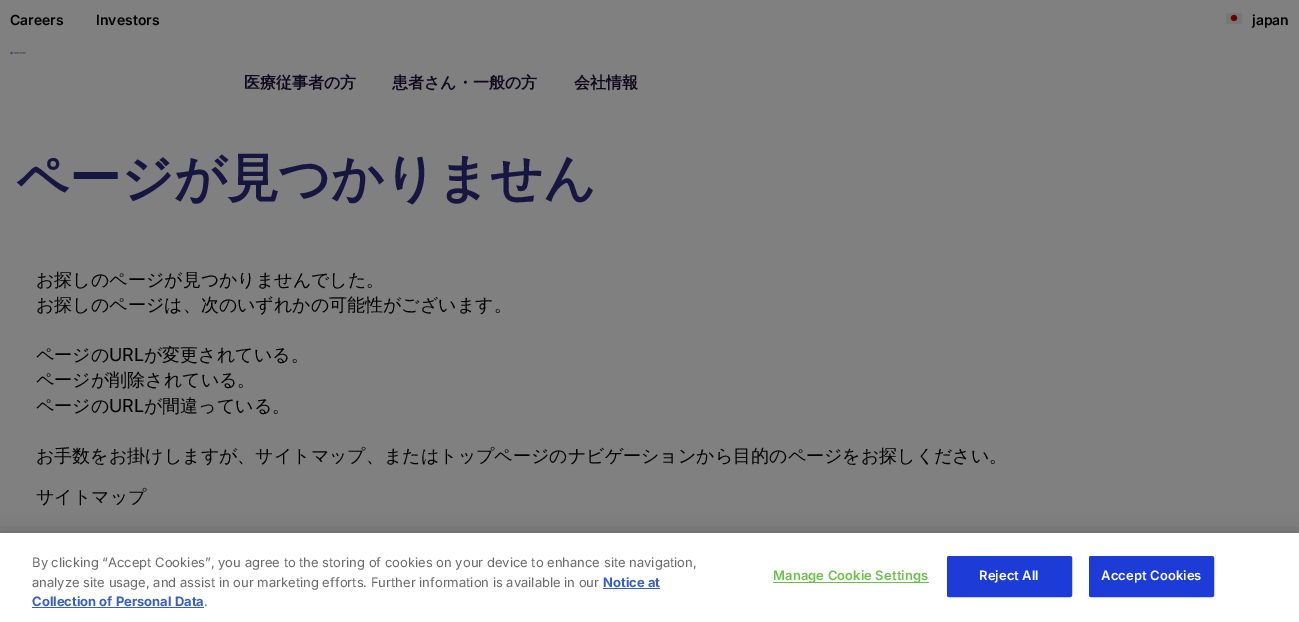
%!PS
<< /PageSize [1299 622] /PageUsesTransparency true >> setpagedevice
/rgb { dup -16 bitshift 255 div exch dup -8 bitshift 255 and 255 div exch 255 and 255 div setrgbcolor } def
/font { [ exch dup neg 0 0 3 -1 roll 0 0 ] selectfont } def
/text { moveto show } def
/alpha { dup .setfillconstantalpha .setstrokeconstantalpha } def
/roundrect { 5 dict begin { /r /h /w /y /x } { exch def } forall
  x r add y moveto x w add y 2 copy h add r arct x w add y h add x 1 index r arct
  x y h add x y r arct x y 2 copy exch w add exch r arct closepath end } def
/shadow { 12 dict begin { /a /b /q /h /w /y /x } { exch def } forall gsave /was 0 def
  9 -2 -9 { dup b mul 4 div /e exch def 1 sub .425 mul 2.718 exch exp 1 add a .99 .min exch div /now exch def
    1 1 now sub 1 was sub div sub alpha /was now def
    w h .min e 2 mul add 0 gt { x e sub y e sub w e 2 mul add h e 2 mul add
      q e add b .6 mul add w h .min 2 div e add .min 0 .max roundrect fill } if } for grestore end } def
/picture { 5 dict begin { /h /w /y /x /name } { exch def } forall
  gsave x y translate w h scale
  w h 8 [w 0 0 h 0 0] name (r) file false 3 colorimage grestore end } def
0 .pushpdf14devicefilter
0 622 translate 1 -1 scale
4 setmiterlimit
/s1 { /Inter-SemiBold 14 font 16#000000 rgb } def
/s2 { /WenQuanYiZenHei-Bold 16 font 16#0E091C rgb } def
/s3 { /WenQuanYiZenHei-Medium 18 font 16#000000 rgb } def
/s4 { /Inter-Regular 18 font 16#000000 rgb } def
/s5 { /Inter-Regular 13 font 16#696969 rgb } def
/s6 { /Inter-Bold 13 font 16#3860BE rgb } def
16#808080 rgb
0 0 1299 622 rectfill
s1
(Careers) 10 25 text
(Investors) 96 25 text
(pic1.raw) 1226 13 16 11 picture
(japan) 1252 25 text
(pic2.raw) 10 51 16 4 picture
s2
(医療従事者の方) 244 88 text
(患者さん・一般の方) 392 88 text
(会社情報) 574 88 text
/WenQuanYiZenHei-Bold 52 font
16#161640 rgb
16 196 moveto -0.25 0 (ページが見つかりません) ashow
s3
(お探しのページが見つかりませんでした。) 36 286 text
(お探しのページは、次のいずれかの可能性がございます。) 36 311 text
(ページの) 36 361 text
s4
(URL) 109 361 text
s3
(が変更されている。) 144 361 text
(ページが削除されている。) 36 386 text
(ページの) 36 412 text
s4
(URL) 109 412 text
s3
(が間違っている。) 144 412 text
(お手数をお掛けしますが、サイトマップ、またはトップページのナビゲーションから目的のページをお探しください。) 36 462 text
(サイトマップ) 36 503 text
0 533 1299 89 0 9 0.2 shadow
16#FFFFFF rgb
0 533 1299 89 rectfill
s5
(By clicking “Accept Cookies”, you agree to the storing of cookies on your device to enhance site navigation,) 32 567 text
(analyze site usage, and assist in our marketing efforts. Further information is available in our) 32 587 text
s6
(Notice at) 603 587 text
603 588 57 1 rectfill
(Collection of Personal Data) 32 606 text
32 607 172 1 rectfill
s5
(.) 204 606 text
16#6CC04A rgb
773 582 156 1 rectfill
/Inter-SemiBold 13 font
773 580 moveto 0.1 0 (Manage Cookie Settings) ashow
16#1D3CD7 rgb
947.5 556.5 124 40 1.5 roundrect gsave fill grestore
stroke
16#FFFFFF rgb
979 580 moveto 0.1 0 (Reject All) ashow
16#1D3CD7 rgb
1089.5 556.5 124 40 1.5 roundrect gsave fill grestore
stroke
16#FFFFFF rgb
1101 580 moveto 0.1 0 (Accept Cookies) ashow
.poppdf14devicefilter showpage
